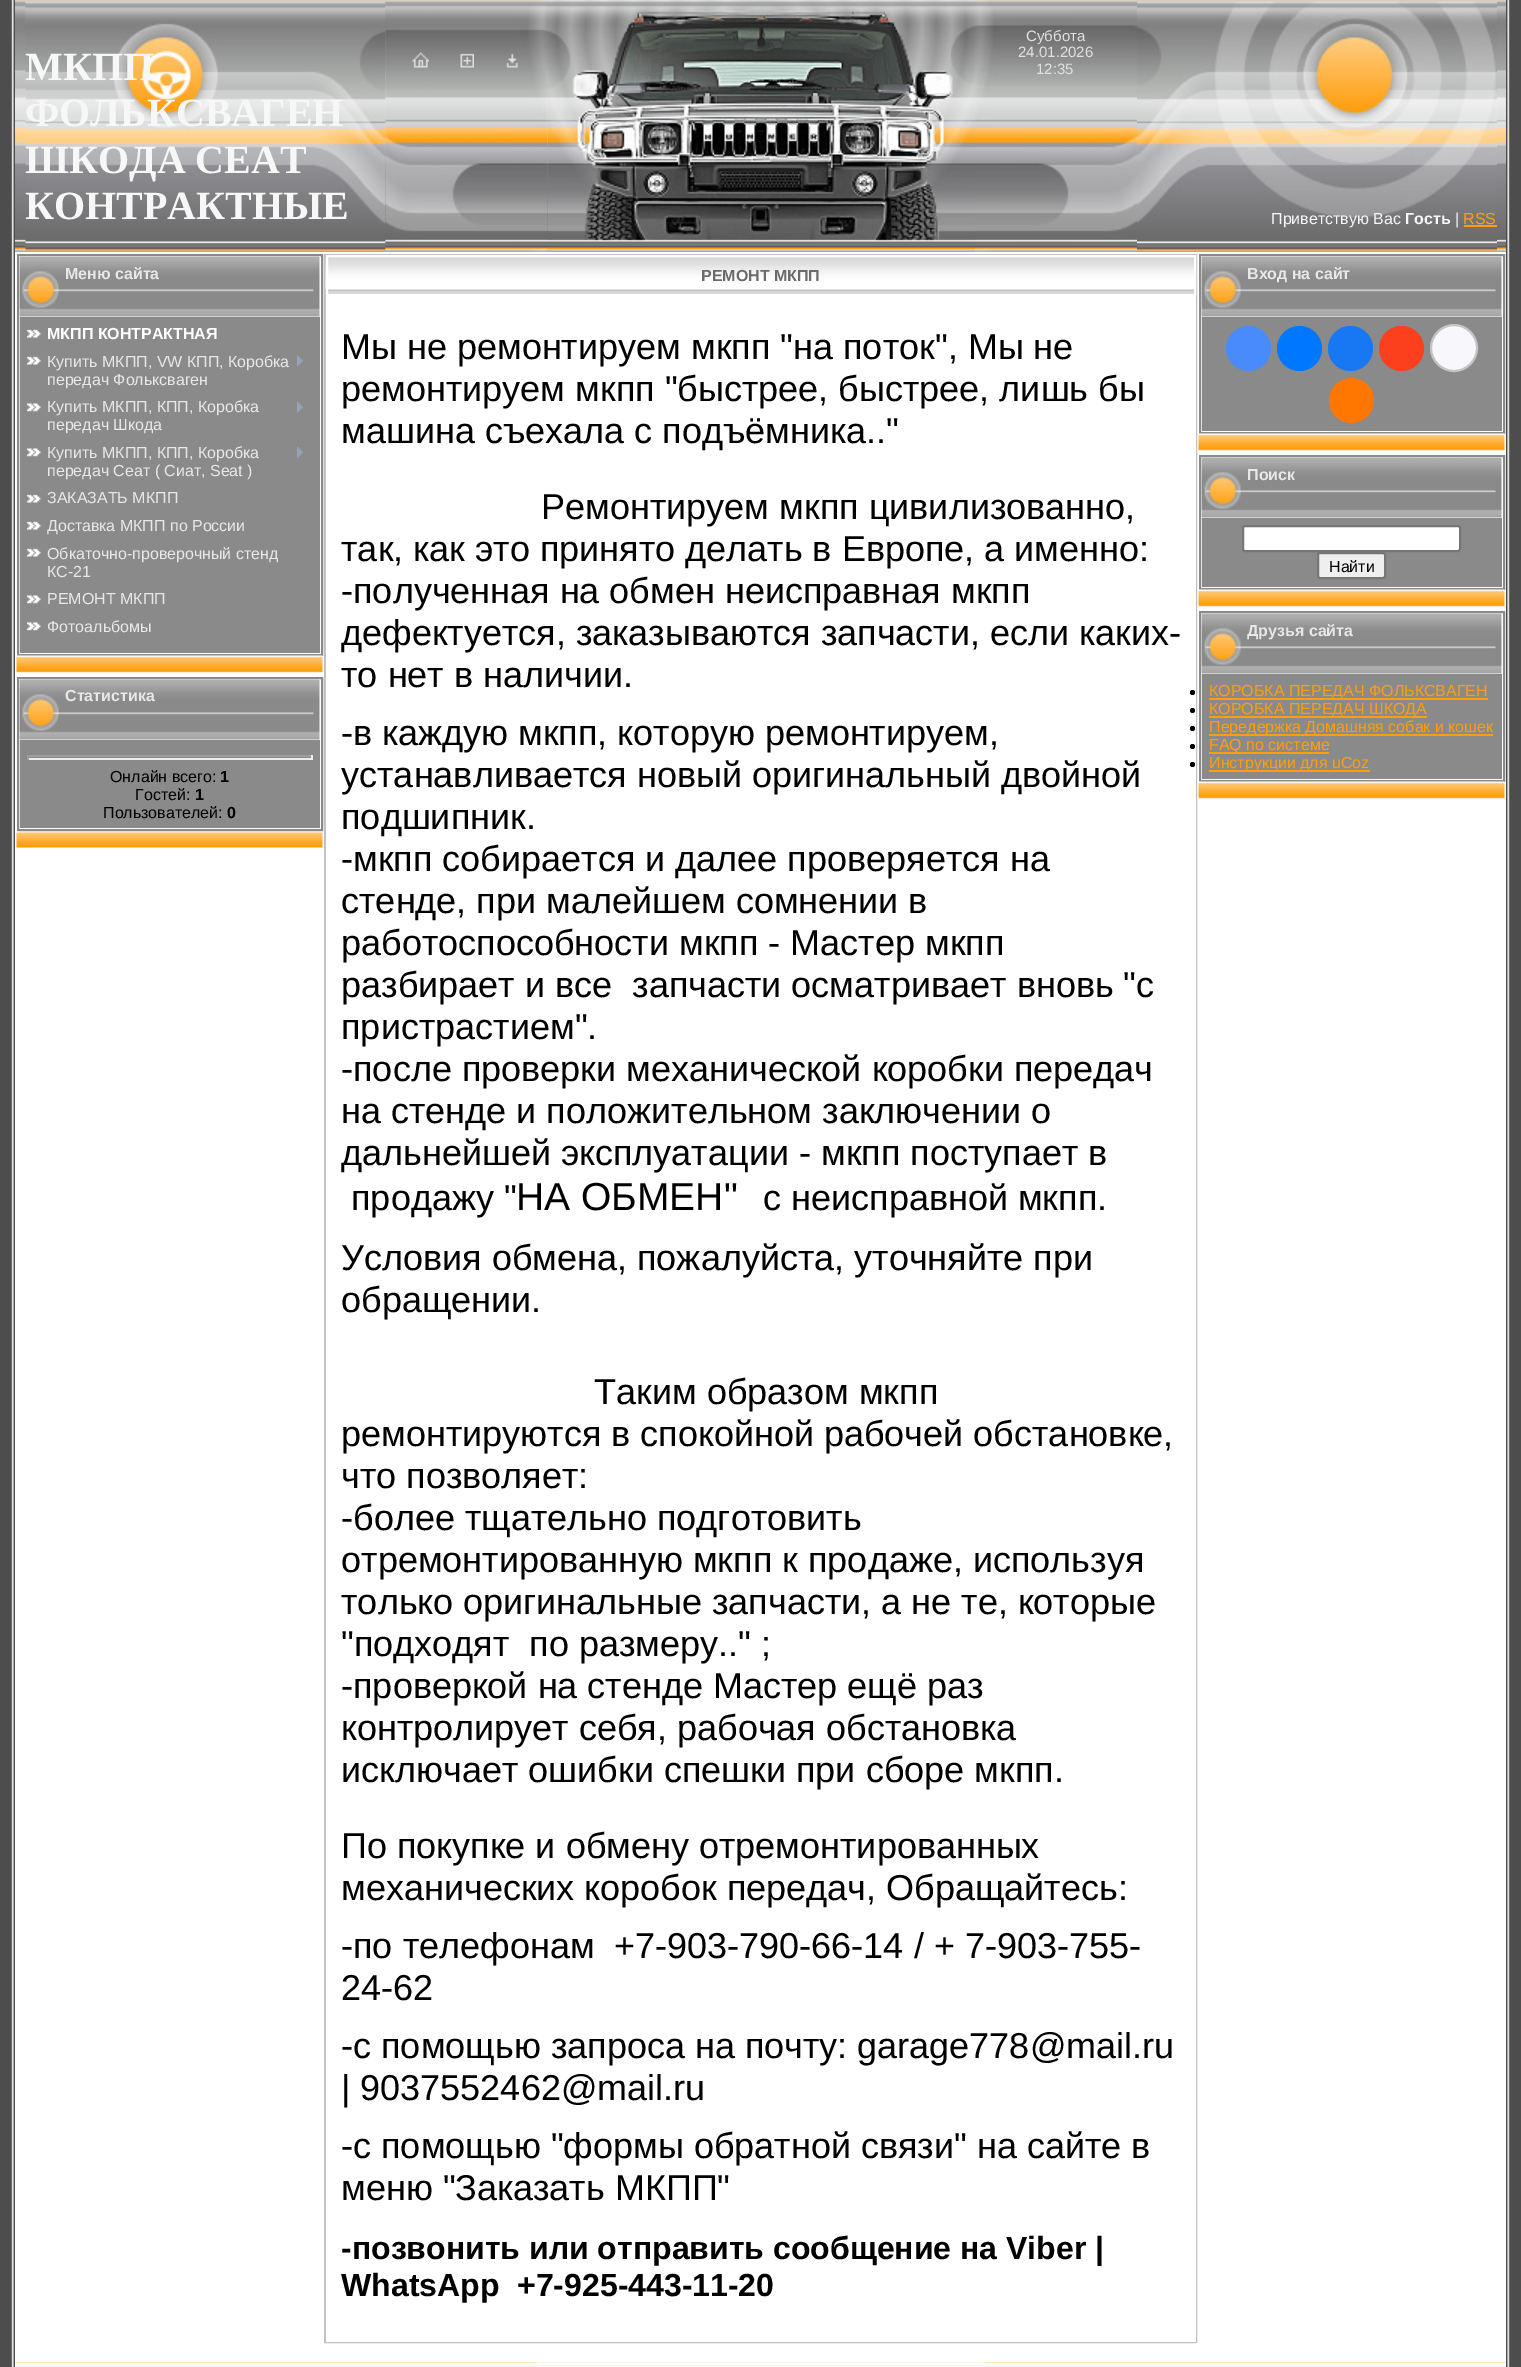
%!PS
<< /PageSize [1521 2367] >> setpagedevice
/rgb { dup -16 bitshift 255 div exch dup -8 bitshift 255 and 255 div exch 255 and 255 div setrgbcolor } def
/font { [ exch dup neg 0 0 3 -1 roll 0 0 ] selectfont } def
/text { moveto show } def
/circle { newpath 0 360 arc closepath } def
/roundrect { 5 dict begin { /r /h /w /y /x } { exch def } forall
  x r add y moveto x w add y 2 copy h add r arct x w add y h add x 1 index r arct
  x y h add x y r arct x y 2 copy exch w add exch r arct closepath end } def
/picture { 5 dict begin { /h /w /y /x /name } { exch def } forall
  gsave x y translate w h scale
  w h 8 [w 0 0 h 0 0] name (r) file false 3 colorimage grestore end } def
0 2367 translate 1 -1 scale
4 setmiterlimit
/s1 { /LiberationSerif-Bold 40 font 16#F7F7F7 rgb } def
/s2 { /LiberationSans-Regular 15 font 16#E0E1E0 rgb } def
/s3 { /LiberationSans-Regular 16 font 16#F7F7F7 rgb } def
/s4 { /LiberationSans-Bold 16 font 16#F7F7F7 rgb } def
/s5 { /LiberationSans-Regular 16 font 16#FF9E0C rgb } def
/s6 { /LiberationSans-Bold 16 font 16#E7E9E7 rgb } def
/s7 { /LiberationSans-Bold 16 font 16#FFFFFF rgb } def
/s8 { /LiberationSans-Regular 16 font 16#E7E9E7 rgb } def
/s9 { /LiberationSans-Regular 16 font 16#000000 rgb } def
/s10 { /LiberationSans-Bold 16 font 16#000000 rgb } def
/s11 { /LiberationSans-Bold 16 font 16#6B6B6C rgb } def
/s12 { /LiberationSans-Regular 36 font 16#000000 rgb } def
/s13 { /LiberationSans-Regular 39 font 16#000000 rgb } def
/s14 { /LiberationSans-Bold 32 font 16#000000 rgb } def
16#FFFFFF rgb
0 0 1521 2367 rectfill
(pic1.raw) 0 0 15 2367 picture
(pic2.raw) 15 0 1491 252 picture
(pic3.raw) 25 1 361 250 picture
s1
(МКПП) 25 80 text
(ФОЛЬКСВАГЕН) 25 126 text
(ШКОДА СЕАТ) 25 173 text
(КОНТРАКТНЫЕ) 25 219 text
(pic4.raw) 385 0 163 252 picture
(pic5.raw) 412 52 17 16 picture
(pic6.raw) 460 53 14 15 picture
(pic7.raw) 506 53 12 15 picture
(pic8.raw) 547 0 428 249 picture
(pic9.raw) 975 0 162 252 picture
s2
(Суббота) 1026 41 text
(24.01.2026) 1018 57 text
(12:35) 1036 74 text
(pic10.raw) 1137 1 360 250 picture
s3
(Приветствую Вас) 1271 224 text
s4
(Гость) 1405 224 text
s3
(|) 1455 224 text
s5
(RSS) 1463 224 text
1464 225 33 2 rectfill
16#8A8A8A rgb
2 setlinewidth
18 255 304 400 rectstroke
(pic11.raw) 19 256 301 61 picture
s6
(Меню сайта) 65 279 text
16#8A8A8A rgb
20 317 300 336 rectfill
(pic12.raw) 27 329 14 9 picture
s7
(МКПП КОНТРАКТНАЯ) 47 339 text
(pic12.raw) 27 356 14 9 picture
s8
(Купить МКПП, VW КПП, Коробка) 47 367 text
(pic13.raw) 297 355 6 11 picture
(передач Фольксваген) 47 385 text
(pic14.raw) 27 403 14 9 picture
(Купить МКПП, КПП, Коробка) 47 412 text
(pic15.raw) 297 402 6 11 picture
(передач Шкода) 47 430 text
(pic14.raw) 27 448 14 9 picture
(Купить МКПП, КПП, Коробка) 47 458 text
(pic15.raw) 297 447 6 11 picture
(передач Сеат \( Сиат, Seat \)) 47 476 text
(pic12.raw) 27 494 14 9 picture
(ЗАКАЗАТЬ МКПП) 47 503 text
(pic12.raw) 27 521 14 9 picture
(Доставка МКПП по России) 47 531 text
(pic12.raw) 27 548 14 9 picture
(Обкаточно-проверочный стенд) 47 559 text
(КС-21) 47 577 text
(pic14.raw) 27 595 14 9 picture
(РЕМОНТ МКПП) 47 604 text
(pic14.raw) 27 622 14 9 picture
(Фотоальбомы) 47 632 text
(pic16.raw) 16 655 307 18 picture
16#8A8A8A rgb
18 678 304 152 rectstroke
(pic17.raw) 19 679 301 61 picture
s6
(Статистика) 65 701 text
16#8A8A8A rgb
20 740 300 88 rectfill
16#9F9F9F rgb
27 755 285 2 rectfill
16#EEEEEE rgb
311 755 2 5 rectfill
27 758 285 2 rectfill
16#9F9F9F rgb
27 755 2 5 rectfill
s9
(Онлайн всего:) 110 782 text
s10
(1) 220 782 text
s9
(Гостей:) 135 800 text
s10
(1) 195 800 text
s9
(Пользователей:) 103 818 text
s10
(0) 227 818 text
(pic18.raw) 16 832 307 16 picture
16#C2C2C2 rgb
325 255 871 2087 rectstroke
(pic19.raw) 325 255 869 41 picture
16#FFFFFF rgb
327 256 868 39 rectstroke
s11
(РЕМОНТ МКПП) 701 281 text
16#FFFFFF rgb
326 296 870 2046 rectfill
s12
(Мы не ремонтируем мкпп "на поток", Мы не) 341 359 text
(ремонтируем мкпп "быстрее, быстрее, лишь бы) 341 401 text
(машина съехала с подъёмника..") 341 443 text
(Ремонтируем мкпп цивилизованно,) 541 519 text
(так, как это принято делать в Европе, а именно:) 341 561 text
(-полученная на обмен неисправная мкпп) 341 603 text
(дефектуется, заказываются запчасти, если каких-) 341 645 text
(то нет в наличии.) 341 687 text
(-в каждую мкпп, которую ремонтируем,) 341 745 text
(устанавливается новый оригинальный двойной) 341 787 text
(подшипник.) 341 829 text
(-мкпп собирается и далее проверяется на) 341 871 text
(стенде, при малейшем сомнении в) 341 913 text
(работоспособности мкпп - Мастер мкпп) 341 955 text
(разбирает и все  запчасти осматривает вновь "с) 341 997 text
(пристрастием".) 341 1039 text
(-после проверки механической коробки передач) 341 1081 text
(на стенде и положительном заключении о) 341 1123 text
(дальнейшей эксплуатации - мкпп поступает в) 341 1165 text
(продажу ") 351 1210 text
s13
(НА ОБМЕН") 516 1210 text
s12
(с неисправной мкпп.) 763 1210 text
(Условия обмена, пожалуйста, уточняйте при) 341 1270 text
(обращении.) 341 1312 text
(Таким образом мкпп) 594 1404 text
(ремонтируются в спокойной рабочей обстановке,) 341 1446 text
(что позволяет:) 341 1488 text
(-более тщательно подготовить) 341 1530 text
(отремонтированную мкпп к продаже, используя) 341 1572 text
(только оригинальные запчасти, а не те, которые) 341 1614 text
("подходят  по размеру.." ;) 341 1656 text
(-проверкой на стенде Мастер ещё раз) 341 1698 text
(контролирует себя, рабочая обстановка) 341 1740 text
(исключает ошибки спешки при сборе мкпп.) 341 1782 text
(По покупке и обмену отремонтированных) 341 1858 text
(механических коробок передач, Обращайтесь:) 341 1900 text
(-по телефонам  +7-903-790-66-14 / + 7-903-755-) 341 1958 text
(24-62) 341 2000 text
(-с помощью запроса на почту: garage778@mail.ru) 341 2058 text
(| 9037552462@mail.ru) 341 2100 text
(-с помощью "формы обратной связи" на сайте в) 341 2158 text
(меню "Заказать МКПП") 341 2200 text
s14
(-позвонить или отправить сообщение на Viber |) 341 2259 text
(WhatsApp  +7-925-443-11-20) 341 2296 text
16#8A8A8A rgb
1200 255 304 178 rectstroke
(pic20.raw) 1201 256 301 61 picture
s6
(Вход на сайт) 1247 279 text
16#8A8A8A rgb
1202 317 300 114 rectfill
16#498BFA rgb
1248.5 348.5 22.5 circle fill
16#0077FF rgb
1299.5 348.5 22.5 circle fill
16#1877F2 rgb
1350.5 348.5 22.5 circle fill
16#FC3F1D rgb
1401.5 348.5 22.5 circle fill
16#F8F8FC rgb
1454 348 23 circle gsave fill grestore
16#C4C4C4 rgb
stroke
16#FF7700 rgb
1351.5 400.5 22.5 circle fill
(pic16.raw) 1198 433 307 18 picture
16#8A8A8A rgb
1200 456 304 133 rectstroke
(pic21.raw) 1201 457 301 61 picture
s6
(Поиск) 1247 480 text
16#8A8A8A rgb
1202 518 300 69 rectfill
16#FFFFFF rgb
1243 526 217 25 2 roundrect gsave fill grestore
16#767676 rgb
stroke
16#EFEFEF rgb
1318 553 67 25 2 roundrect gsave fill grestore
16#767676 rgb
stroke
s9
(Найти) 1329 572 text
(pic16.raw) 1198 589 307 18 picture
16#8A8A8A rgb
1200 612 304 169 rectstroke
(pic22.raw) 1201 613 301 61 picture
s6
(Друзья сайта) 1247 636 text
16#8A8A8A rgb
1202 674 300 105 rectfill
16#000000 rgb
1192.5 692.5 2.5 circle fill
16#FF9E0C rgb
1209 698 279 2 rectfill
s5
(КОРОБКА ПЕРЕДАЧ ФОЛЬКСВАГЕН) 1209 696 text
16#000000 rgb
1192.5 710.5 2.5 circle fill
16#FF9E0C rgb
1209 716 218 2 rectfill
(КОРОБКА ПЕРЕДАЧ ШКОДА) 1209 714 text
16#000000 rgb
1192.5 728.5 2.5 circle fill
16#FF9E0C rgb
1209 734 284 2 rectfill
(Передержка Домашняя собак и кошек) 1209 732 text
16#000000 rgb
1192.5 746.5 2.5 circle fill
16#FF9E0C rgb
1209 752 120 2 rectfill
(FAQ по системе) 1209 750 text
16#000000 rgb
1192.5 764.5 2.5 circle fill
16#FF9E0C rgb
1209 770 161 2 rectfill
(Инструкции для uCoz) 1209 768 text
(pic16.raw) 1198 781 307 18 picture
(pic23.raw) 1506 0 15 2367 picture
(pic24.raw) 15 2362 1491 5 picture
(pic25.raw) 537 2362 449 1 picture
showpage
